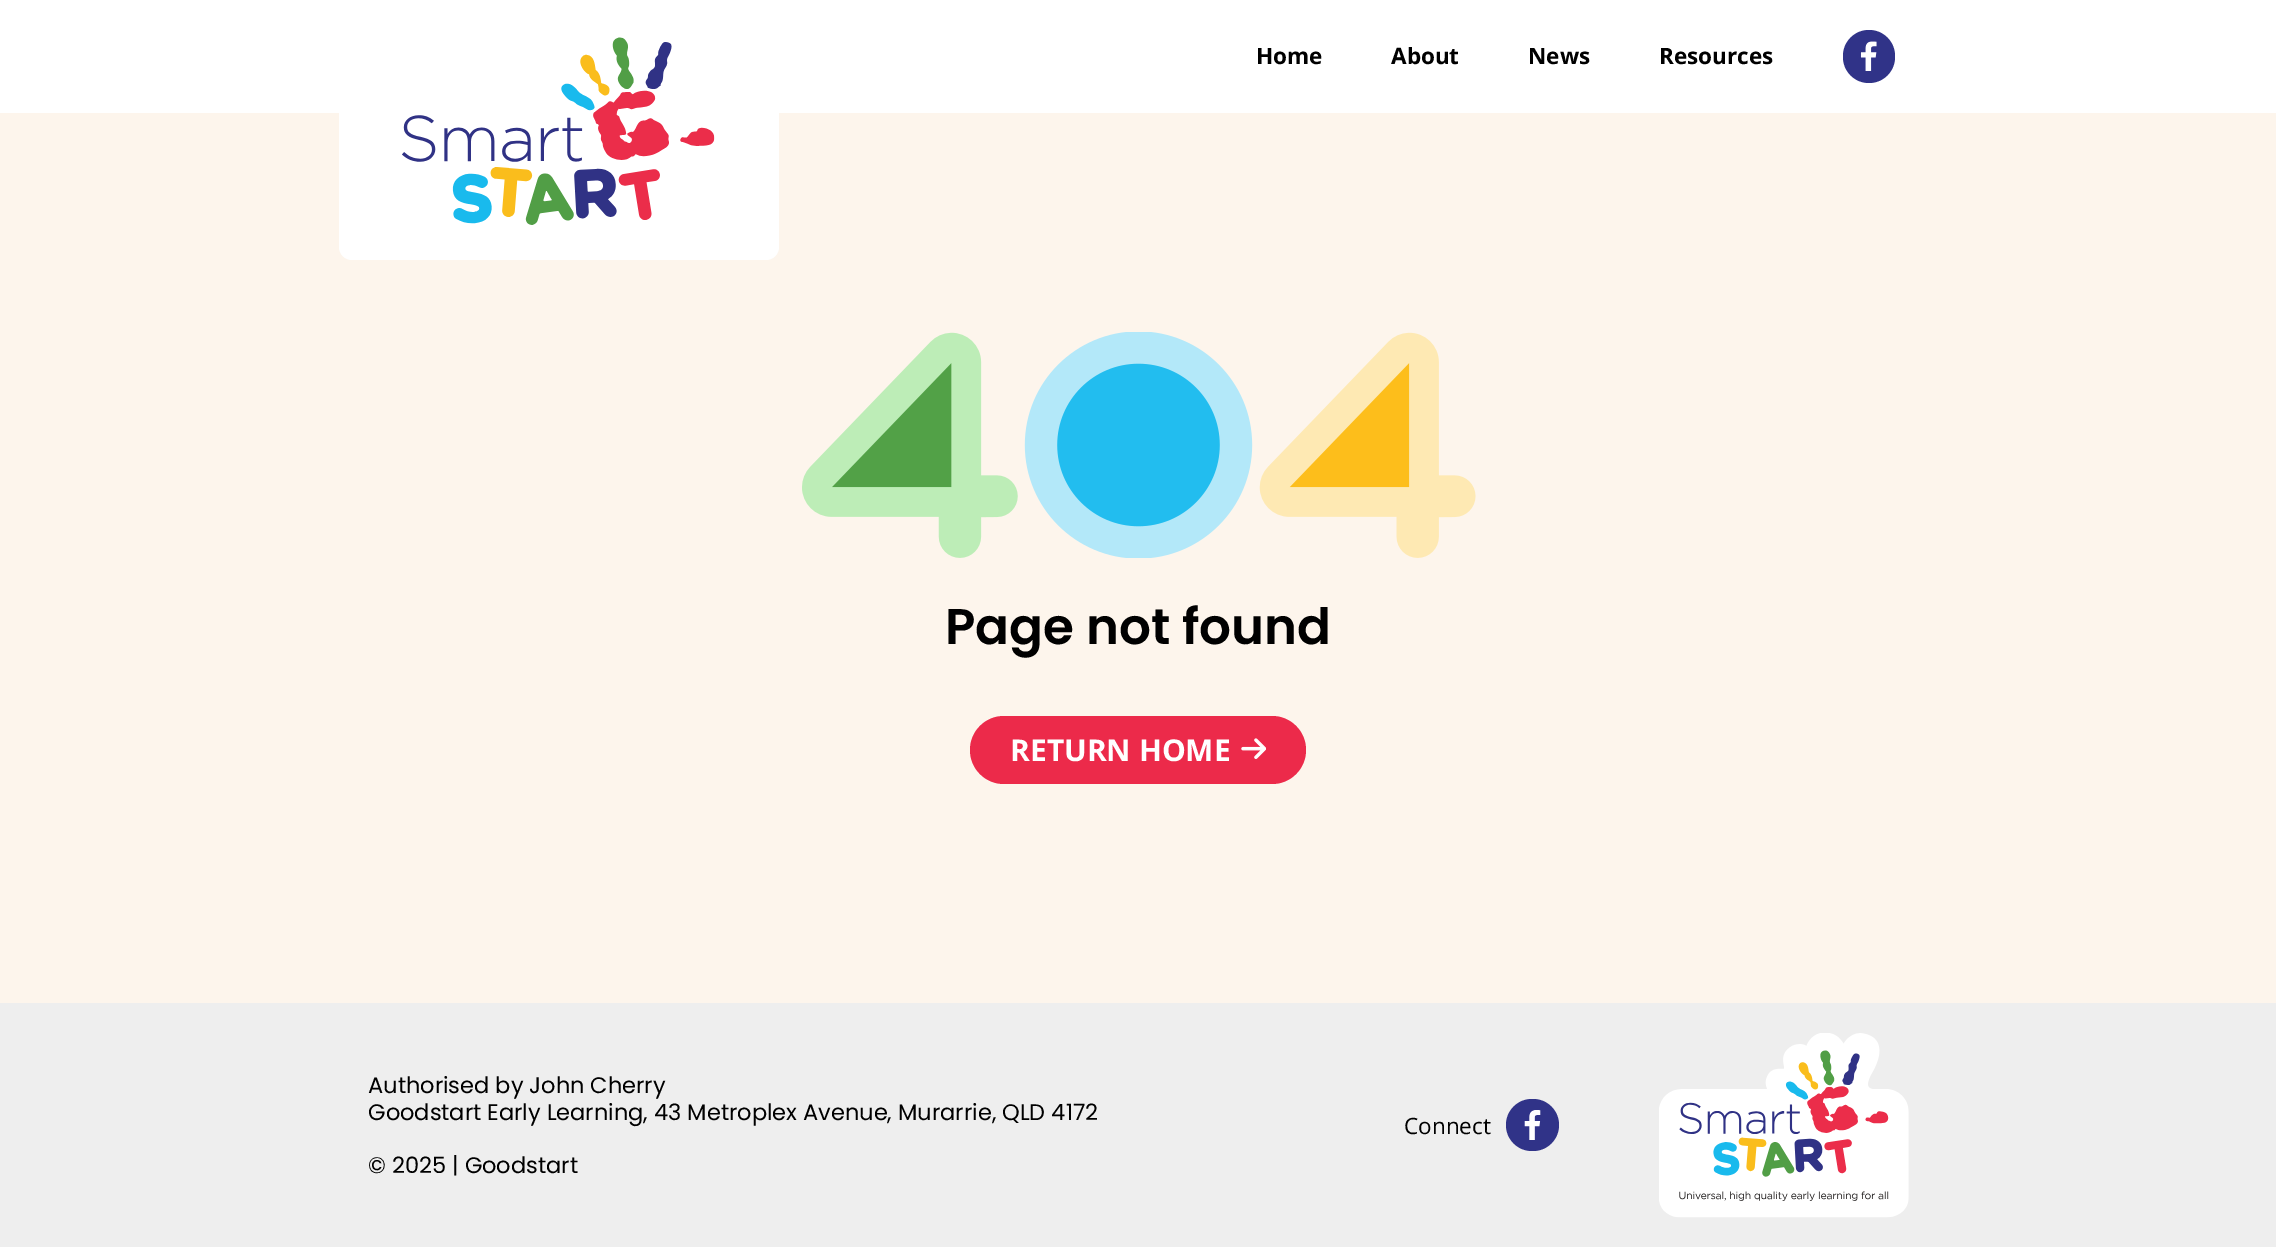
%!PS
<< /PageSize [2276 1247] >> setpagedevice
/rgb { dup -16 bitshift 255 div exch dup -8 bitshift 255 and 255 div exch 255 and 255 div setrgbcolor } def
/font { [ exch dup neg 0 0 3 -1 roll 0 0 ] selectfont } def
/text { moveto show } def
/roundrect { 5 dict begin { /r /h /w /y /x } { exch def } forall
  x r add y moveto x w add y 2 copy h add r arct x w add y h add x 1 index r arct
  x y h add x y r arct x y 2 copy exch w add exch r arct closepath end } def
/picture { 5 dict begin { /h /w /y /x /name } { exch def } forall
  gsave x y translate w h scale
  w h 8 [w 0 0 h 0 0] name (r) file false 3 colorimage grestore end } def
0 1247 translate 1 -1 scale
4 setmiterlimit
/s1 { /OpenSans-Bold 22.5 font 16#000000 rgb } def
/s2 { /Poppins-SemiBold 50 font 16#000000 rgb } def
/s3 { /OpenSans-Bold 30 font 16#FFFFFF rgb } def
/s4 { /Poppins-Regular 22.5 font 16#000000 rgb } def
/s5 { /OpenSans-Regular 22.5 font 16#000000 rgb } def
16#FFFFFF rgb
0 0 2276 1247 rectfill
16#FDF5EC rgb
0 113 2276 890 rectfill
16#FFFFFF rgb
339 0 440 260 13 roundrect fill
(pic1.raw) 402 37 313 188 picture
s1
(Home) 1256 64 text
(About) 1391 64 text
(News) 1528 64 text
(Resources) 1659 64 text
16#303388 rgb
1843 30 52 53 26 roundrect fill
(pic2.raw) 1860 41 17 30 picture
(pic3.raw) 802 332 674 226 picture
s2
(Page not found) 945 644 text
16#EC2A4A rgb
970 716 336 68 34 roundrect fill
s3
(RETURN HOME) 1010 761 text
(pic4.raw) 1241 738 25 21 picture
16#EEEEEE rgb
0 1003 2276 244 rectfill
s4
(Authorised by John Cherry) 368 1093 text
(Goodstart Early Learning, 43 Metroplex Avenue, Murarrie, QLD 4172) 368 1120 text
(© 2025 | Goodstart) 368 1173 text
s5
(Connect) 1404 1134 text
16#303388 rgb
1506 1099 53 52 26 roundrect fill
(pic5.raw) 1524 1110 17 30 picture
(pic6.raw) 1659 1033 250 185 picture
showpage
